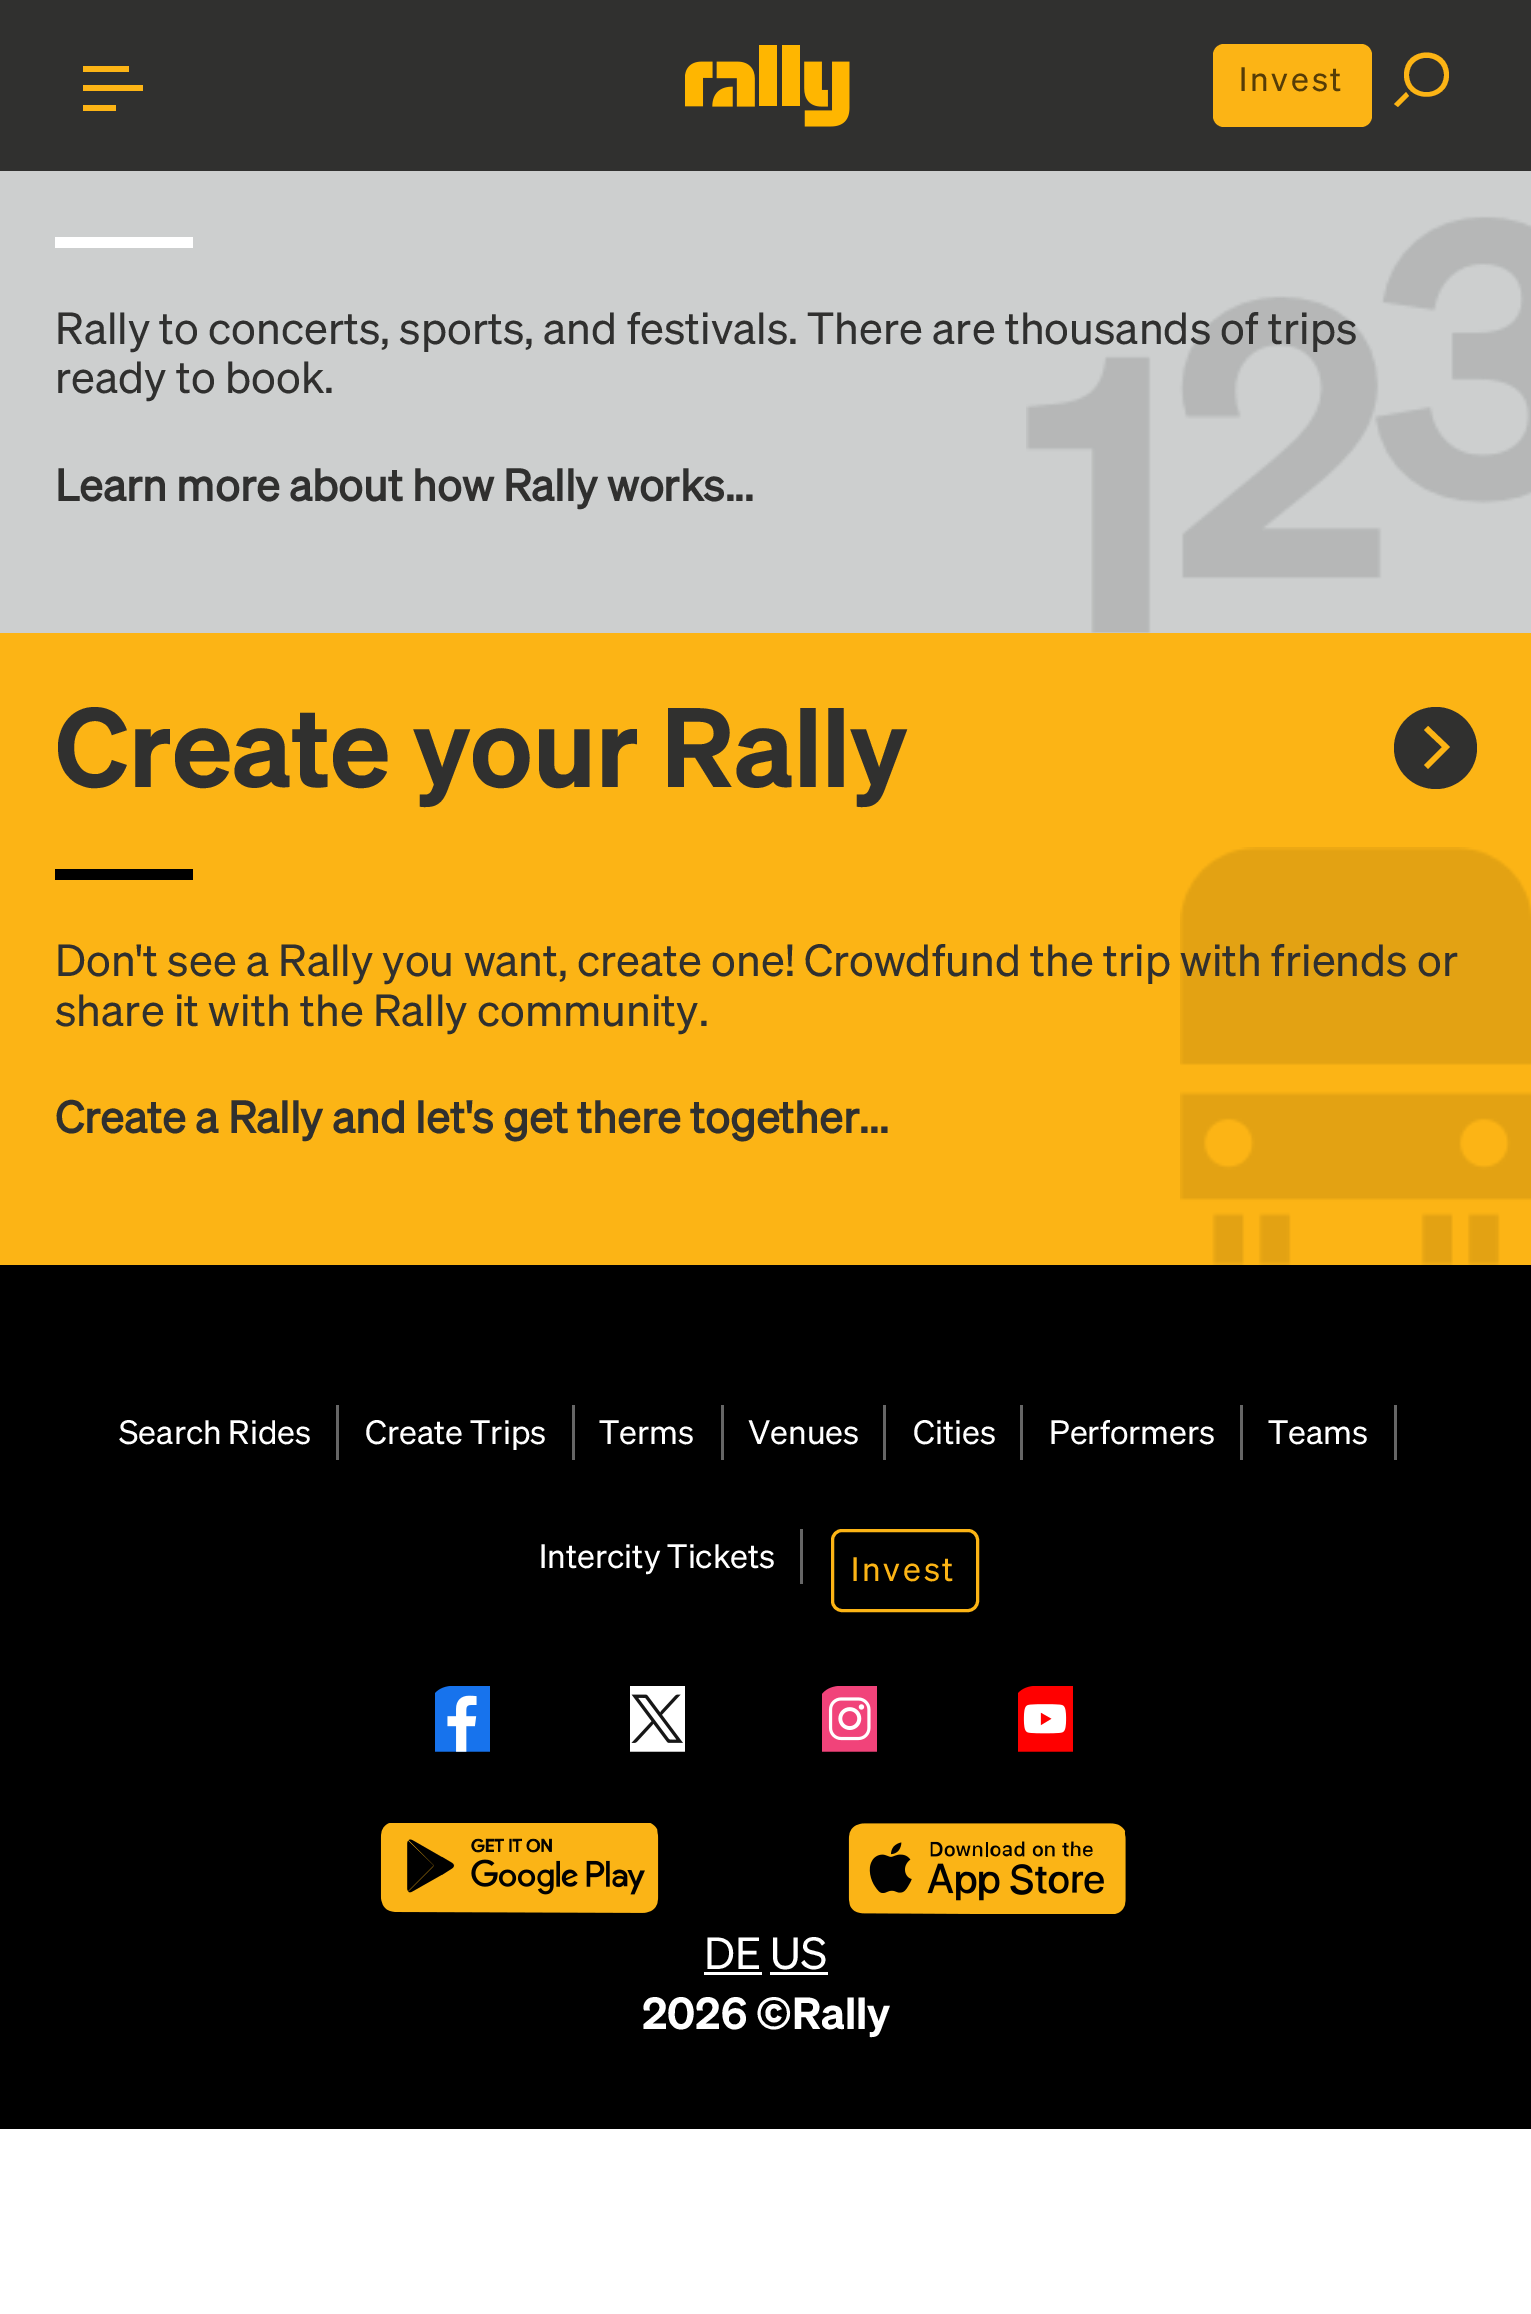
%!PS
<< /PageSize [1531 2314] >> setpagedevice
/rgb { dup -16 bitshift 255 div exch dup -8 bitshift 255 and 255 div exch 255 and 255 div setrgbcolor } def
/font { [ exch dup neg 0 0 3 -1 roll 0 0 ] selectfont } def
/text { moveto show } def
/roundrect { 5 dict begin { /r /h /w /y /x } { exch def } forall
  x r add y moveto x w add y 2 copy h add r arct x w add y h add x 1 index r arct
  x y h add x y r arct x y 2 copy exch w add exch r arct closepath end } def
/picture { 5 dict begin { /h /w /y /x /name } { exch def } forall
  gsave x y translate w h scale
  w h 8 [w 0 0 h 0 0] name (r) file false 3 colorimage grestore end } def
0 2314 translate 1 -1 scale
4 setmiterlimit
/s1 { /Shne-Regular 44 font 16#30302F rgb } def
/s2 { /Shne-Bold 44 font 16#30302F rgb } def
/s3 { /Shne-SemiBold 110 font 16#30302F rgb } def
/s4 { /Shne-Regular 33 font 16#FFFFFF rgb } def
/s5 { /Shne-Regular 44 font 16#FFFFFF rgb } def
/s6 { /Shne-SemiBold 44 font 16#FFFFFF rgb } def
16#FFFFFF rgb
0 0 1531 2314 rectfill
16#30302F rgb
0 0 1531 171 rectfill
16#FCB415 rgb
83 85 60 6 rectfill
83 66 46 6 rectfill
83 105 33 6 rectfill
(pic1.raw) 685 45 165 82 picture
1213 44 159 83 11 roundrect fill
/Shne-Regular 33 font
16#563D07 rgb
1239 91 moveto 2.75 0 (Invest) ashow
16#FCB415 rgb
1404 75 moveto 1404 45 1449 45 1449 75 curveto 1449 104 1404 104 1404 75 curveto closepath 1444 75 moveto 1444 52 1409 52 1409 75 curveto 1409 98 1444 98 1444 75 curveto closepath 1398 107 moveto 1409 96 lineto 1406 92 lineto 1394 104 lineto closepath fill
16#CDCFCF rgb
0 171 1531 462 rectfill
(pic2.raw) 1026 216 505 417 picture
16#FFFFFF rgb
55 237 138 11 rectfill
s1
(Rally to concerts, sports, and festivals. There are thousands of trips) 55 344 text
(ready to book.) 55 393 text
s2
(Learn more about how Rally works...) 55 501 text
16#FCB415 rgb
0 633 1531 632 rectfill
(pic3.raw) 1180 847 351 418 picture
16#30302F rgb
1436 707 moveto 1458 707 1477 725 1477 748 curveto 1477 771 1458 789 1436 789 curveto 1413 789 1394 771 1394 748 curveto 1394 725 1413 707 1436 707 curveto closepath eofill
16#FCB415 rgb
1446 751 moveto 1428 769 lineto 1424 765 lineto 1442 747 lineto 1424 730 lineto 1428 726 lineto 1450 747 lineto closepath eofill
s3
(Create your Rally) 55 787 text
16#000000 rgb
55 869 138 11 rectfill
s1
(Don't see a Rally you want, create one! Crowdfund the trip with friends or) 55 976 text
(share it with the Rally community.) 55 1026 text
s2
(Create a Rally and let's get there together...) 55 1133 text
16#000000 rgb
0 1265 1531 864 rectfill
16#666666 rgb
336 1405 3 55 rectfill
s4
(Search Rides) 119 1444 text
16#666666 rgb
572 1405 3 55 rectfill
s4
(Create Trips) 365 1444 text
16#666666 rgb
721 1405 3 55 rectfill
s4
(Terms) 599 1444 text
16#666666 rgb
883 1405 3 55 rectfill
s4
(Venues) 748 1444 text
16#666666 rgb
1020 1405 3 55 rectfill
s4
(Cities) 913 1444 text
16#666666 rgb
1240 1405 3 55 rectfill
s4
(Performers) 1049 1444 text
16#666666 rgb
1394 1405 3 55 rectfill
s4
(Teams) 1268 1444 text
16#666666 rgb
800 1529 3 55 rectfill
s4
(Intercity Tickets) 539 1568 text
16#FCB415 rgb
3 setlinewidth
832.5 1530.5 145 80 9.5 roundrect stroke
851 1581 moveto 2.75 0 (Invest) ashow
(pic4.raw) 435 1686 55 66 picture
(pic5.raw) 630 1686 55 66 picture
(pic6.raw) 822 1686 55 66 picture
(pic7.raw) 1018 1686 55 66 picture
(pic8.raw) 380 1823 279 90 picture
(pic9.raw) 848 1823 278 91 picture
s5
(DE US) 704 1969 text
704 1972 58 3 rectfill
770 1972 58 3 rectfill
s6
(2026 ©Rally) 642 2029 text
showpage
